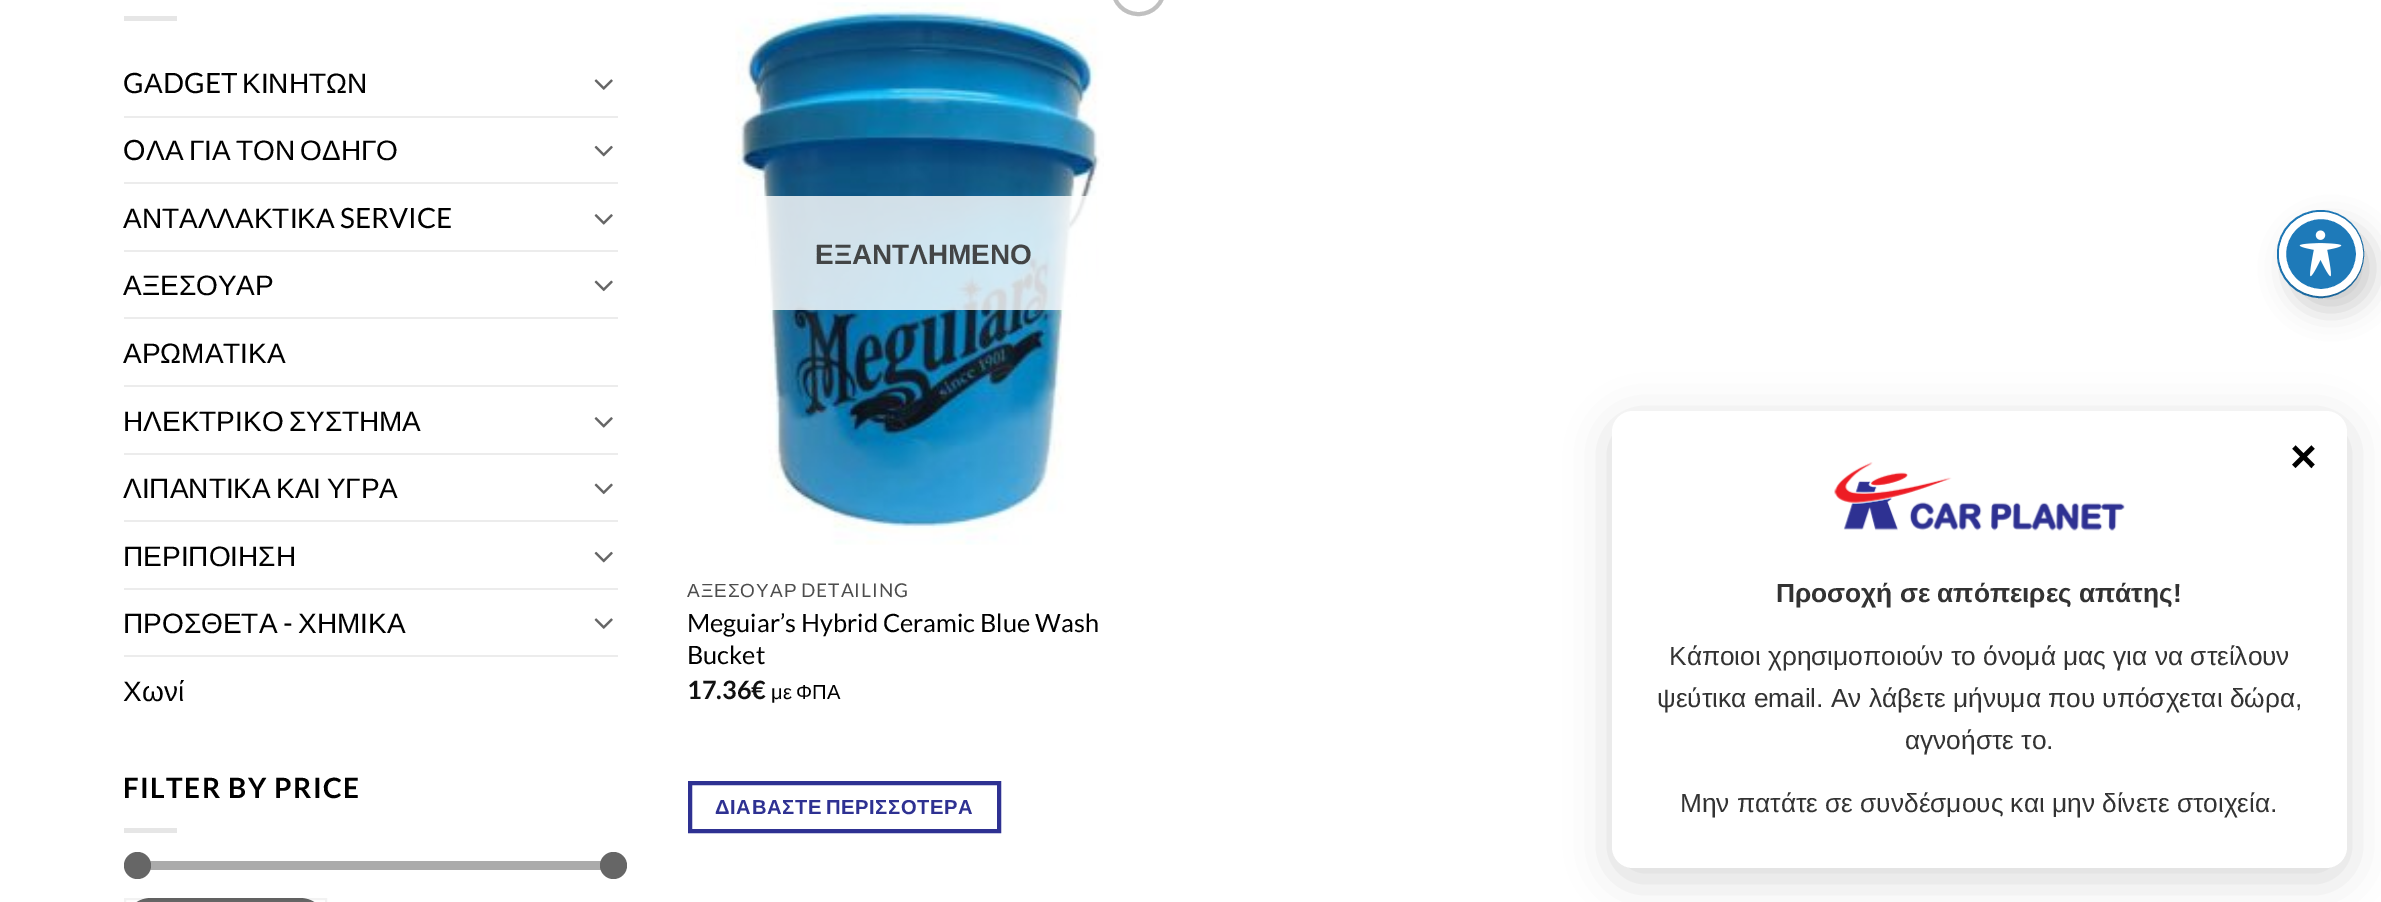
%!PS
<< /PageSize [2381 902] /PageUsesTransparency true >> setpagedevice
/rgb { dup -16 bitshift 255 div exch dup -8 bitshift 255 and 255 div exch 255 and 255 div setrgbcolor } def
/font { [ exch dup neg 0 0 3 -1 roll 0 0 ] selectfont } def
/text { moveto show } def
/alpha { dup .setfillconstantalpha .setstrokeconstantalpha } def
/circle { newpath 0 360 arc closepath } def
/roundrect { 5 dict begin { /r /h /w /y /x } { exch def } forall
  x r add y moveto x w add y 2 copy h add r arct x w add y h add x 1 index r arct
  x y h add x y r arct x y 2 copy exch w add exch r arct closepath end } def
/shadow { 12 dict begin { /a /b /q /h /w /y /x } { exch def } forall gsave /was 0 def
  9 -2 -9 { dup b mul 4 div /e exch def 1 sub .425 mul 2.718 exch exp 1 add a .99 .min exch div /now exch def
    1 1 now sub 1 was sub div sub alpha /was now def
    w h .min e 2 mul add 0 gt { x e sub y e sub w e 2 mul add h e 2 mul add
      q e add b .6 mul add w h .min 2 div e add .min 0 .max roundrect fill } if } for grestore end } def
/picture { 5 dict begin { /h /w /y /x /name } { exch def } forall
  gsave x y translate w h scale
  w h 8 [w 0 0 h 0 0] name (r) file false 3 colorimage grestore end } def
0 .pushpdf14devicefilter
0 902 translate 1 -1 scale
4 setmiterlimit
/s1 { /Lato-Regular 28 font 16#000000 rgb } def
/s2 { /LiberationSans-Regular 28 font 16#000000 rgb } def
/s3 { /LiberationSans-Bold 28 font 16#434546 rgb } def
/s4 { /Lato-Regular 25.25 font 16#000000 rgb } def
/s5 { /Lato-Bold 25.25 font 16#111111 rgb } def
/s6 { /LiberationSans-Bold 46 font 16#000000 rgb } def
/s7 { /LiberationSans-Bold 26.25 font 16#333333 rgb } def
/s8 { /LiberationSans-Regular 26.25 font 16#333333 rgb } def
16#FFFFFF rgb
0 0 2381 902 rectfill
16#E6E6E6 rgb
124 16 53 5 rectfill
s1
(G) 123 93 text
s2
(Α) 144 93 text
s1
(DGET) 163 93 text
s2
(ΚΙΝΗΤΩΝ) 242 93 text
(pic1.raw) 594 79 19 11 picture
16#ECECEC rgb
124 116 494 2 rectfill
s1
(O) 123 160 text
/LiberationSans-Regular 28 font
146 160 moveto -2.5 0 32 (ΛΑ ΓΙΑ ΤΟΝ ΟΔΗΓΟ) widthshow
(pic2.raw) 594 145 19 12 picture
16#ECECEC rgb
124 182 494 2 rectfill
s2
(ΑΝΤΑΛΛΑΚΤΙΚΑ) 123 228 text
s1
(SERVICE) 340 228 text
(pic3.raw) 594 214 19 11 picture
16#ECECEC rgb
124 250 494 2 rectfill
s2
(ΑΞΕΣΟΥΑΡ) 123 295 text
(pic4.raw) 594 280 19 12 picture
16#ECECEC rgb
124 317 494 2 rectfill
s2
(ΑΡΩΜΑΤΙΚΑ) 123 363 text
16#ECECEC rgb
124 385 494 2 rectfill
16#000000 rgb
123 431 moveto -2.5 0 32 (ΗΛΕΚΤΡΙΚΟ ΣΥΣΤΗΜΑ) widthshow
(pic3.raw) 594 417 19 11 picture
16#ECECEC rgb
124 453 494 2 rectfill
16#000000 rgb
123 498 moveto -2.5 0 32 (ΛΙΠΑΝΤΙΚΑ ΚΑΙ ΥΓΡΑ) widthshow
(pic4.raw) 594 483 19 12 picture
16#ECECEC rgb
124 520 494 2 rectfill
s2
(ΠΕΡΙΠΟΙΗΣΗ) 123 566 text
(pic2.raw) 594 551 19 12 picture
16#ECECEC rgb
124 588 494 2 rectfill
s2
(ΠΡΟΣΘΕΤΑ) 123 633 text
s1
(-) 283 633 text
s2
(ΧΗΜΙΚΑ) 298 633 text
(pic1.raw) 594 618 19 11 picture
16#ECECEC rgb
124 655 494 2 rectfill
s2
(Χωνί) 123 701 text
/Lato-Bold 28 font
123 798 moveto 1.4 0 (FILTER BY PRICE) ashow
16#E6E6E6 rgb
124 828 53 5 rectfill
16#F1F1F1 rgb
124 861 494 9 4.5 roundrect fill
0.5 alpha
16#666666 rgb
124 861 494 9 4.5 roundrect fill
1 alpha
137.5 865.5 13.5 circle fill
613.5 865.5 13.5 circle fill
124 898 203 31 27 roundrect fill
0.05 alpha
16#000000 rgb
2 setlinewidth
125 899 201 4 rectstroke
1 alpha
16#C0C0C0 rgb
4 setlinewidth
1113 -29 51 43 25 roundrect stroke
(pic5.raw) 735 2 369 543 picture
0.81 alpha
16#FFFFFF rgb
756 196 340 114 rectfill
1 alpha
s3
(ΕΞΑΝΤΛΗΜΕΝΟ) 815 264 text
/LiberationSans-Regular 19 font
16#4D4D4D rgb
687 597 moveto 1 0 (ΑΞΕΣΟΥΑΡ) ashow
/Lato-Regular 19 font
801 597 moveto 1 0 (DETAILING) ashow
s4
(Meguiar’s Hybrid Ceramic Blue Wash) 687 632 text
(Bucket) 687 664 text
s5
(17.36€) 687 699 text
/LiberationSans-Regular 20.2 font
16#000000 rgb
771 699 moveto -1 0 32 (με ΦΠΑ) widthshow
16#2E3192 rgb
690 783 309 48 rectstroke
/LiberationSans-Bold 20.2 font
715 814 moveto -2 0 32 0.6 0 (ΔΙΑΒΑΣΤΕ ΠΕΡΙΣΣΟΤΕΡΑ) awidthshow
16#1E7AB9 rgb
2 setlinewidth
2278 211 85 86 42.5 roundrect stroke
16#000000 rgb
2289 226 84 84 42 14 0.2 shadow
16#1E7AB9 rgb
2321 254 38.5 circle gsave fill grestore
16#FFFFFF rgb
7 setlinewidth
stroke
(pic6.raw) 2299 230 43 47 picture
16#000000 rgb
1612 422 735 457 21 22 0.15 shadow
16#FFFFFF rgb
1612 411 735 457 21 roundrect fill
s6
(×) 2290 472 text
(pic7.raw) 1834 462 291 69 picture
s7
(Προσοχή σε απόπειρες απάτης!) 1776 602 text
s8
(Κάποιοι χρησιμοποιούν το όνομά μας για να στείλουν) 1669 665 text
(ψεύτικα email. Αν λάβετε μήνυμα που υπόσχεται δώρα,) 1657 707 text
(αγνοήστε το.) 1905 749 text
(Μην πατάτε σε συνδέσμους και μην δίνετε στοιχεία.) 1680 812 text
.poppdf14devicefilter showpage
